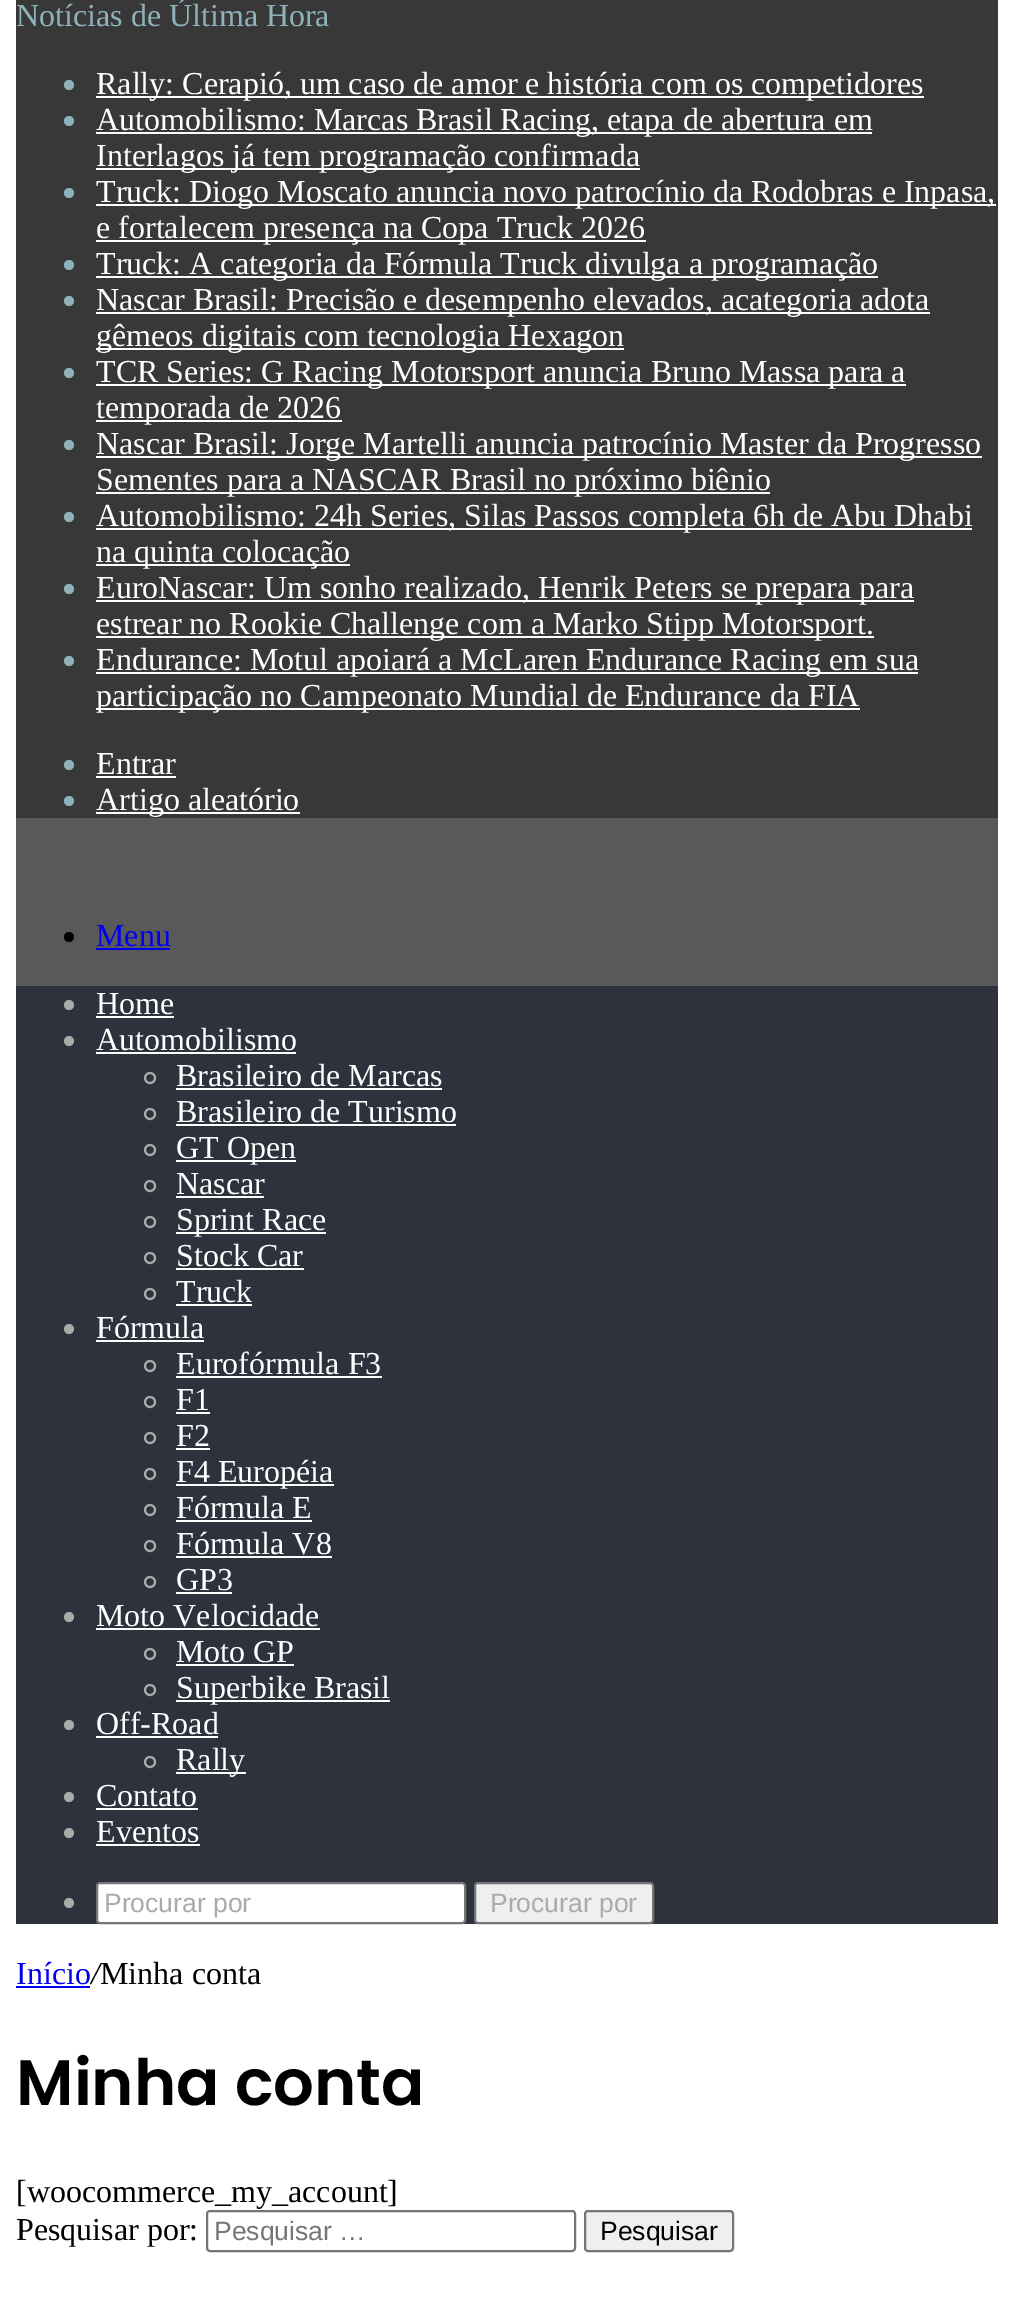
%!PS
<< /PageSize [1014 2311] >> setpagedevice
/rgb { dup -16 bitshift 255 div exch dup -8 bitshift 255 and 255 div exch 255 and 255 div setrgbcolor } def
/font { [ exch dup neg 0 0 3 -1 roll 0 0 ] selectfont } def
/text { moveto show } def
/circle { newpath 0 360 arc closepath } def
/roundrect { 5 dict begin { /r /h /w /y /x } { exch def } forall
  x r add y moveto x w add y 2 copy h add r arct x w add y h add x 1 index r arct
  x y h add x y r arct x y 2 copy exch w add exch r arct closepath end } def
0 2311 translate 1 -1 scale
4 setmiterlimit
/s1 { /LiberationSerif-Regular 32 font 16#90B3BB rgb } def
/s2 { /LiberationSerif-Regular 32 font 16#FFFFFF rgb } def
/s3 { /LiberationSerif-Regular 32 font 16#0000EE rgb } def
/s4 { /LiberationSans-Regular 26.5 font 16#AAAAAA rgb } def
/s5 { /LiberationSerif-Italic 32 font 16#000000 rgb } def
/s6 { /LiberationSerif-Regular 32 font 16#000000 rgb } def
/s7 { /Poppins-SemiBold 64 font 16#000000 rgb } def
/s8 { /LiberationSans-Regular 26.5 font 16#757575 rgb } def
/s9 { /LiberationSans-Regular 26.5 font 16#000000 rgb } def
16#FFFFFF rgb
0 0 1014 2311 rectfill
16#595959 rgb
16 818 982 168 rectfill
16#383838 rgb
16 0 982 818 rectfill
s1
(Notícias de Última Hora) 16 26 text
69 85 5 circle fill
16#FFFFFF rgb
96 96 828 2 rectfill
(Rally: Cerapió, um caso de amor e história com os competidores) 96 94 text
16#90B3BB rgb
69 121 5 circle fill
16#FFFFFF rgb
96 132 776 2 rectfill
(Automobilismo: Marcas Brasil Racing, etapa de abertura em) 96 130 text
96 168 544 2 rectfill
(Interlagos já tem programação confirmada) 96 166 text
16#90B3BB rgb
69 193 5 circle fill
16#FFFFFF rgb
96 204 900 2 rectfill
(Truck: Diogo Moscato anuncia novo patrocínio da Rodobras e Inpasa,) 96 202 text
96 240 550 2 rectfill
(e fortalecem presença na Copa Truck 2026) 96 238 text
16#90B3BB rgb
69 265 5 circle fill
16#FFFFFF rgb
96 276 782 2 rectfill
(Truck: A categoria da Fórmula Truck divulga a programação) 96 274 text
16#90B3BB rgb
69 301 5 circle fill
16#FFFFFF rgb
96 312 834 2 rectfill
(Nascar Brasil: Precisão e desempenho elevados, acategoria adota) 96 310 text
96 348 528 2 rectfill
(gêmeos digitais com tecnologia Hexagon) 96 346 text
16#90B3BB rgb
69 373 5 circle fill
16#FFFFFF rgb
96 384 810 2 rectfill
(TCR Series: G Racing Motorsport anuncia Bruno Massa para a) 96 382 text
96 420 246 2 rectfill
(temporada de 2026) 96 418 text
16#90B3BB rgb
69 445 5 circle fill
16#FFFFFF rgb
96 456 886 2 rectfill
(Nascar Brasil: Jorge Martelli anuncia patrocínio Master da Progresso) 96 454 text
96 492 674 2 rectfill
(Sementes para a NASCAR Brasil no próximo biênio) 96 490 text
16#90B3BB rgb
69 517 5 circle fill
16#FFFFFF rgb
96 528 876 2 rectfill
(Automobilismo: 24h Series, Silas Passos completa 6h de Abu Dhabi) 96 526 text
96 564 254 2 rectfill
(na quinta colocação) 96 562 text
16#90B3BB rgb
69 589 5 circle fill
16#FFFFFF rgb
96 600 818 2 rectfill
(EuroNascar: Um sonho realizado, Henrik Peters se prepara para) 96 598 text
96 636 778 2 rectfill
(estrear no Rookie Challenge com a Marko Stipp Motorsport.) 96 634 text
16#90B3BB rgb
69 661 5 circle fill
16#FFFFFF rgb
96 672 822 2 rectfill
(Endurance: Motul apoiará a McLaren Endurance Racing em sua) 96 670 text
96 708 764 2 rectfill
(participação no Campeonato Mundial de Endurance da FIA) 96 706 text
16#90B3BB rgb
69 765 5 circle fill
s2
(Entrar) 96 774 text
96 776 80 2 rectfill
16#90B3BB rgb
69 801 5 circle fill
16#FFFFFF rgb
96 812 204 2 rectfill
(Artigo aleatório) 96 810 text
16#000000 rgb
69 937 5 circle fill
s3
(Menu) 96 946 text
96 948 74 2 rectfill
16#2E323C rgb
16 986 982 938 rectfill
16#AAAAAA rgb
69 1005 5 circle fill
s2
(Home) 96 1014 text
96 1016 78 2 rectfill
16#AAAAAA rgb
69 1041 5 circle fill
s2
(Automobilismo) 96 1050 text
96 1052 200 2 rectfill
16#AAAAAA rgb
2 setlinewidth
150 1078 5 circle stroke
s2
(Brasileiro de Marcas) 176 1086 text
176 1088 266 2 rectfill
16#AAAAAA rgb
150 1114 5 circle stroke
s2
(Brasileiro de Turismo) 176 1122 text
176 1124 280 2 rectfill
16#AAAAAA rgb
150 1150 5 circle stroke
16#FFFFFF rgb
176 1160 120 2 rectfill
(GT Open) 176 1158 text
16#AAAAAA rgb
150 1186 5 circle stroke
s2
(Nascar) 176 1194 text
176 1196 88 2 rectfill
16#AAAAAA rgb
150 1222 5 circle stroke
16#FFFFFF rgb
176 1232 150 2 rectfill
(Sprint Race) 176 1230 text
16#AAAAAA rgb
150 1258 5 circle stroke
s2
(Stock Car) 176 1266 text
176 1268 128 2 rectfill
16#AAAAAA rgb
150 1294 5 circle stroke
s2
(Truck) 176 1302 text
176 1304 76 2 rectfill
16#AAAAAA rgb
69 1329 5 circle fill
s2
(Fórmula) 96 1338 text
96 1340 108 2 rectfill
16#AAAAAA rgb
150 1366 5 circle stroke
s2
(Eurofórmula F3) 176 1374 text
176 1376 206 2 rectfill
16#AAAAAA rgb
150 1402 5 circle stroke
s2
(F1) 176 1410 text
176 1412 34 2 rectfill
16#AAAAAA rgb
150 1438 5 circle stroke
s2
(F2) 176 1446 text
176 1448 34 2 rectfill
16#AAAAAA rgb
150 1474 5 circle stroke
16#FFFFFF rgb
176 1484 158 2 rectfill
(F4 Européia) 176 1482 text
16#AAAAAA rgb
150 1510 5 circle stroke
s2
(Fórmula E) 176 1518 text
176 1520 136 2 rectfill
16#AAAAAA rgb
150 1546 5 circle stroke
s2
(Fórmula V8) 176 1554 text
176 1556 156 2 rectfill
16#AAAAAA rgb
150 1582 5 circle stroke
s2
(GP3) 176 1590 text
176 1592 56 2 rectfill
16#AAAAAA rgb
69 1617 5 circle fill
s2
(Moto Velocidade) 96 1626 text
96 1628 224 2 rectfill
16#AAAAAA rgb
150 1654 5 circle stroke
s2
(Moto GP) 176 1662 text
176 1664 118 2 rectfill
16#AAAAAA rgb
150 1690 5 circle stroke
16#FFFFFF rgb
176 1700 214 2 rectfill
(Superbike Brasil) 176 1698 text
16#AAAAAA rgb
69 1725 5 circle fill
s2
(Off-Road) 96 1734 text
96 1736 122 2 rectfill
16#AAAAAA rgb
150 1762 5 circle stroke
16#FFFFFF rgb
176 1772 70 2 rectfill
(Rally) 176 1770 text
16#AAAAAA rgb
69 1797 5 circle fill
s2
(Contato) 96 1806 text
96 1808 102 2 rectfill
16#AAAAAA rgb
69 1833 5 circle fill
s2
(Eventos) 96 1842 text
96 1844 104 2 rectfill
16#AAAAAA rgb
69 1903 5 circle fill
16#FFFFFF rgb
97 1883 368 40 3 roundrect gsave fill grestore
16#767676 rgb
stroke
s4
(Procurar por) 104 1912 text
16#EFEFEF rgb
475 1883 178 40 3 roundrect gsave fill grestore
16#767676 rgb
stroke
s4
(Procurar por) 490 1912 text
s3
(Início) 16 1984 text
16 1986 74 2 rectfill
s5
(/) 91 1984 text
s6
(Minha conta) 100 1984 text
s7
(Minha conta) 16 2105 text
s6
([woocommerce_my_account]) 16 2202 text
(Pesquisar por:) 16 2240 text
16#767676 rgb
207 2211 368 40 3 roundrect stroke
s8
(Pesquisar …) 214 2240 text
16#EFEFEF rgb
585 2211 148 40 3 roundrect gsave fill grestore
16#767676 rgb
stroke
s9
(Pesquisar) 600 2240 text
showpage
